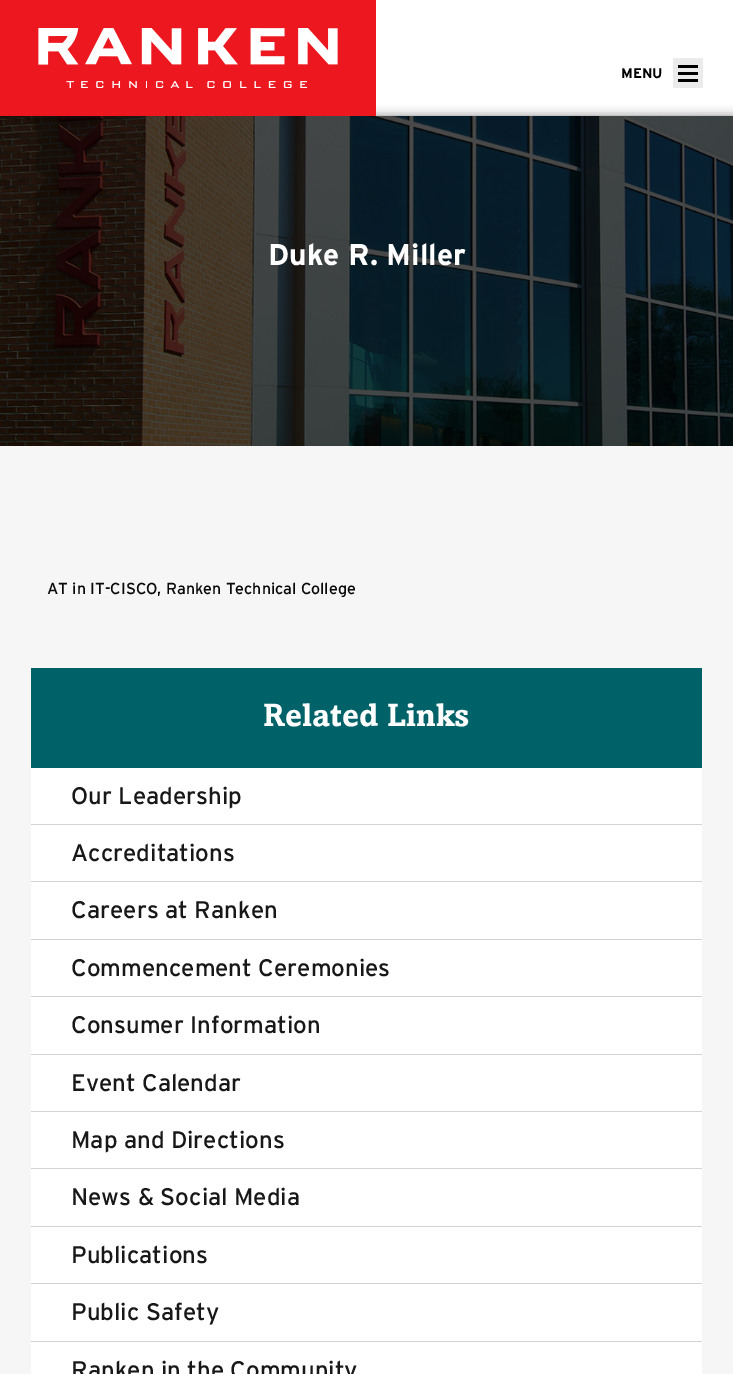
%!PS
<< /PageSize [733 1374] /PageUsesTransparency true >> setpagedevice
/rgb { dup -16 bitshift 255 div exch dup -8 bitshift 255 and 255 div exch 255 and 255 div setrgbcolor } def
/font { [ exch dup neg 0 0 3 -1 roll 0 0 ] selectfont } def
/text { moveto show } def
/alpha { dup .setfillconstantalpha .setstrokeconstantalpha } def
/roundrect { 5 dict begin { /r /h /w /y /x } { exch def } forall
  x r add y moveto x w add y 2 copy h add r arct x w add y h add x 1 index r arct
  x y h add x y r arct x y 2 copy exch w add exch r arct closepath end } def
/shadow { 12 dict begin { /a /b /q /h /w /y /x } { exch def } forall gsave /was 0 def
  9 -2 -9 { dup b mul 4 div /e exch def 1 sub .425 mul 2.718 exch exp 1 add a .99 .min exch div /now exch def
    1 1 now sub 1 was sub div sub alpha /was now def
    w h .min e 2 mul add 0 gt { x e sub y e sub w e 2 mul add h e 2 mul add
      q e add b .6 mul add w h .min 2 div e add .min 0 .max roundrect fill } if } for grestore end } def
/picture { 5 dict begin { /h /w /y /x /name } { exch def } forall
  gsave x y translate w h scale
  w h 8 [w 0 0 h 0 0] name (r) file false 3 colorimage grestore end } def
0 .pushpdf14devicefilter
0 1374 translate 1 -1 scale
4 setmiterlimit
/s1 { /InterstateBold-Bold 14 font 16#000000 rgb } def
/s2 { /InterstateBold-Bold 30 font 16#FFFFFF rgb } def
/s3 { /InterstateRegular-Regular 16 font 16#0A0A0A rgb } def
/s4 { /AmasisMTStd-Bold 32 font 16#FFFFFF rgb } def
/s5 { /InterstateRegular-Regular 24 font 16#191818 rgb } def
16#FFFFFF rgb
0 0 733 1374 rectfill
16#0A0A0A rgb
0 116 733 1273 0 5 0.5 shadow
16#ED171F rgb
0 0 376 116 rectfill
(pic1.raw) 38 28 300 60 picture
16#EBEBEB rgb
673 58 30 30 rectfill
s1
(MENU) 621 78 text
678 79 20 3 rectfill
678 72 20 3 rectfill
678 65 20 3 rectfill
16#F6F6F6 rgb
0 446 733 928 rectfill
(pic2.raw) 0 116 733 330 picture
s2
(Duke R. Miller) 268 265 text
s3
(AT in IT-CISCO, Ranken Technical College) 47 594 text
16#006269 rgb
31 668 671 100 rectfill
s4
(Related Links) 263 726 text
31 768 671 56 rectfill
16#D3D3D3 rgb
31 824 671 1 rectfill
s5
(Our Leadership) 71 804 text
16#FFFFFF rgb
31 825 671 56 rectfill
16#D3D3D3 rgb
31 881 671 1 rectfill
s5
(Accreditations) 71 861 text
16#FFFFFF rgb
31 882 671 57 rectfill
16#D3D3D3 rgb
31 939 671 1 rectfill
s5
(Careers at Ranken) 71 918 text
16#FFFFFF rgb
31 940 671 56 rectfill
16#D3D3D3 rgb
31 996 671 1 rectfill
s5
(Commencement Ceremonies) 71 976 text
16#FFFFFF rgb
31 997 671 57 rectfill
16#D3D3D3 rgb
31 1054 671 1 rectfill
s5
(Consumer Information) 71 1033 text
16#FFFFFF rgb
31 1055 671 56 rectfill
16#D3D3D3 rgb
31 1111 671 1 rectfill
s5
(Event Calendar) 71 1091 text
16#FFFFFF rgb
31 1112 671 56 rectfill
16#D3D3D3 rgb
31 1168 671 1 rectfill
s5
(Map and Directions) 71 1148 text
16#FFFFFF rgb
31 1169 671 57 rectfill
16#D3D3D3 rgb
31 1226 671 1 rectfill
s5
(News & Social Media) 71 1205 text
16#FFFFFF rgb
31 1227 671 56 rectfill
16#D3D3D3 rgb
31 1283 671 1 rectfill
s5
(Publications) 71 1263 text
16#FFFFFF rgb
31 1284 671 57 rectfill
16#D3D3D3 rgb
31 1341 671 1 rectfill
s5
(Public Safety) 71 1320 text
16#FFFFFF rgb
31 1342 671 32 rectfill
s5
(Ranken in the Community) 71 1378 text
.poppdf14devicefilter showpage
